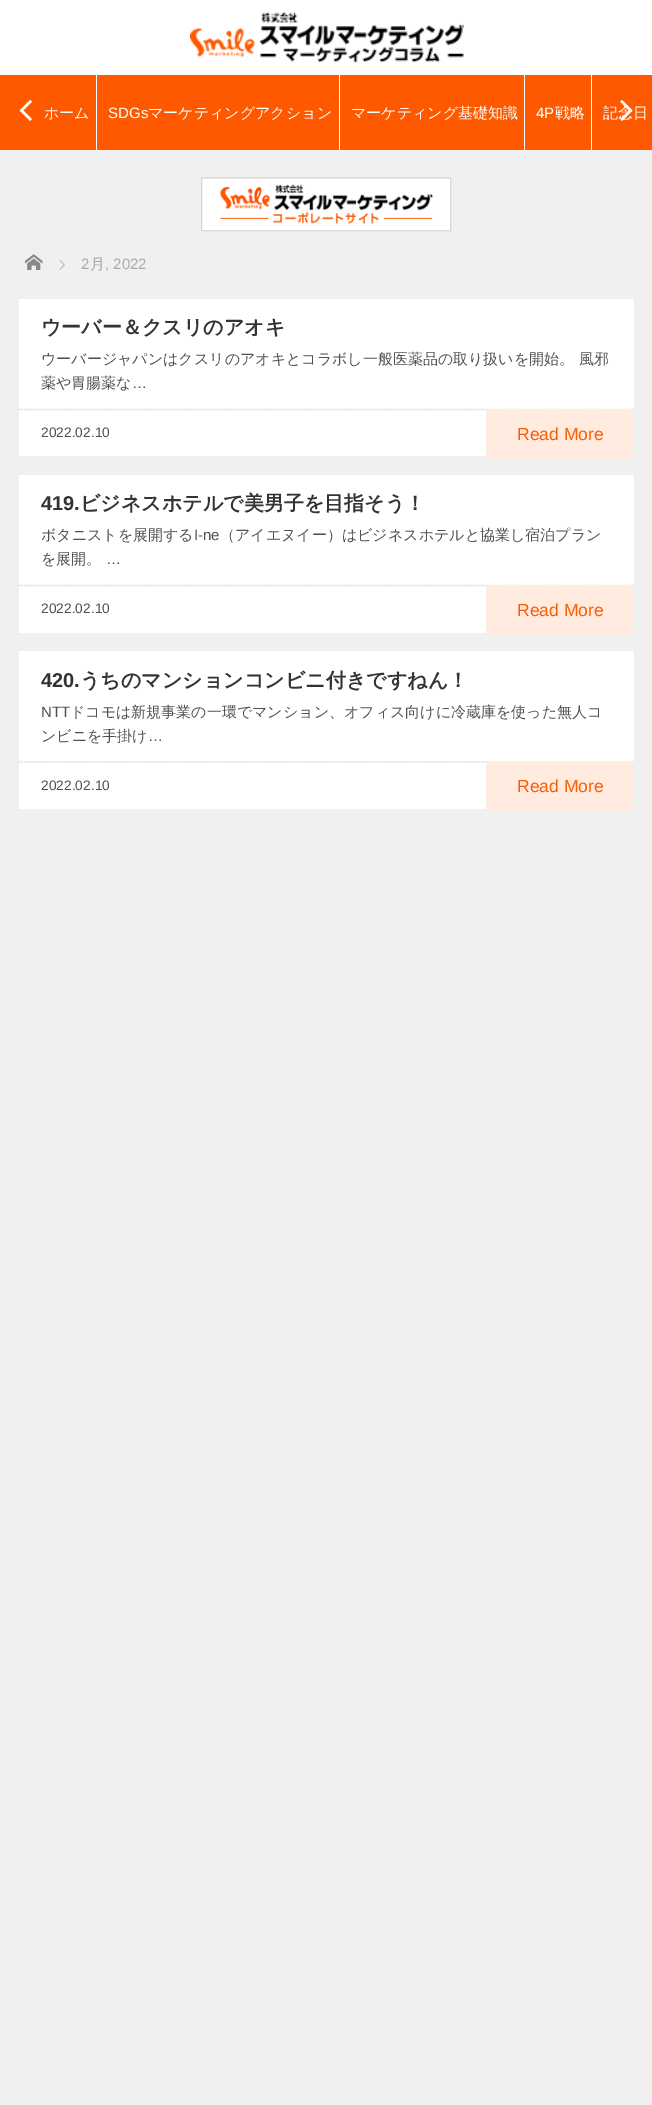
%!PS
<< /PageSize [652 2105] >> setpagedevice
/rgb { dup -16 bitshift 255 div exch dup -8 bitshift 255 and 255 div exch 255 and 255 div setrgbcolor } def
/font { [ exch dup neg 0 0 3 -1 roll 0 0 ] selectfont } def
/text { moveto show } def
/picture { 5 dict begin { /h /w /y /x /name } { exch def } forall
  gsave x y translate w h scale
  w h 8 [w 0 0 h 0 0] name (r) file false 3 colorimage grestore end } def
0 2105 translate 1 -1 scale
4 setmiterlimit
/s1 { /WenQuanYiZenHei-Medium 15 font 16#FFFFFF rgb } def
/s2 { /LiberationSans-Regular 15 font 16#FFFFFF rgb } def
/s3 { /LiberationSans-Regular 15 font 16#AAAAAA rgb } def
/s4 { /WenQuanYiZenHei-Medium 15 font 16#AAAAAA rgb } def
/s5 { /WenQuanYiZenHei-Bold 20 font 16#333333 rgb } def
/s6 { /WenQuanYiZenHei-Medium 15 font 16#505050 rgb } def
/s7 { /LiberationSans-Regular 15 font 16#505050 rgb } def
/s8 { /LiberationSans-Regular 13.75 font 16#505050 rgb } def
/s9 { /LiberationSans-Regular 17.5 font 16#FF5900 rgb } def
/s10 { /LiberationSans-Bold 20 font 16#333333 rgb } def
16#F0F0F0 rgb
0 0 652 2105 rectfill
16#FFFFFF rgb
0 0 652 75 rectfill
(pic1.raw) 190 12 274 51 picture
16#FF5900 rgb
0 75 652 75 rectfill
(pic2.raw) 19 100 13 21 picture
s1
(記念日) 603 118 text
(pic3.raw) 620 100 13 21 picture
96 75 1 75 rectfill
(ホーム) 44 118 text
339 75 1 75 rectfill
s2
(SDGs) 108 118 text
s1
(マーケティングアクション) 148 118 text
524 75 1 75 rectfill
(マーケティング基礎知識) 351 118 text
591 75 1 75 rectfill
s2
(4P) 536 118 text
s1
(戦略) 555 118 text
(pic4.raw) 25 254 18 16 picture
(pic5.raw) 59 260 6 10 picture
s3
(2) 81 269 text
s4
(月) 90 269 text
s3
(, 2022) 105 269 text
(pic6.raw) 201 177 251 55 picture
16#FFFFFF rgb
19 299 615 157 rectfill
s5
(ウーバー＆クスリのアオキ) 41 334 text
s6
(ウーバージャパンはクスリのアオキとコラボし一般医薬品の取り扱いを開始。 風邪) 41 364 text
(薬や胃腸薬な) 41 388 text
s7
(…) 132 388 text
16#D3D3D3 rgb
1.2 setlinewidth
[1.25 1.25] 0 setdash
19 409.5 moveto 634 409.5 lineto stroke
s8
(2022.02.10) 41 437 text
16#FFEBDF rgb
486 409 148 50 rectfill
s9
(Read More) 517 440 text
16#FFFFFF rgb
19 475 615 158 rectfill
s10
(419.) 41 510 text
s5
(ビジネスホテルで美男子を目指そう！) 80 510 text
s6
(ボタニストを展開する) 41 540 text
s7
(I-ne) 194 540 text
s6
(（アイエヌイー）はビジネスホテルと協業し宿泊プラン) 220 540 text
(を展開。) 41 564 text
s7
(…) 106 564 text
16#D3D3D3 rgb
19 585.5 moveto 634 585.5 lineto stroke
s8
(2022.02.10) 41 613 text
16#FFEBDF rgb
486 585 148 50 rectfill
s9
(Read More) 517 616 text
16#FFFFFF rgb
19 651 615 158 rectfill
s10
(420.) 41 687 text
s5
(うちのマンションコンビニ付きですねん！) 80 687 text
s7
(NTT) 41 717 text
s6
(ドコモは新規事業の一環でマンション、オフィス向けに冷蔵庫を使った無人コ) 70 717 text
(ンビニを手掛け) 41 741 text
s7
(…) 148 741 text
16#D3D3D3 rgb
19 762 moveto 634 762 lineto stroke
s8
(2022.02.10) 41 790 text
16#FFEBDF rgb
486 761 148 50 rectfill
s9
(Read More) 517 792 text
showpage
